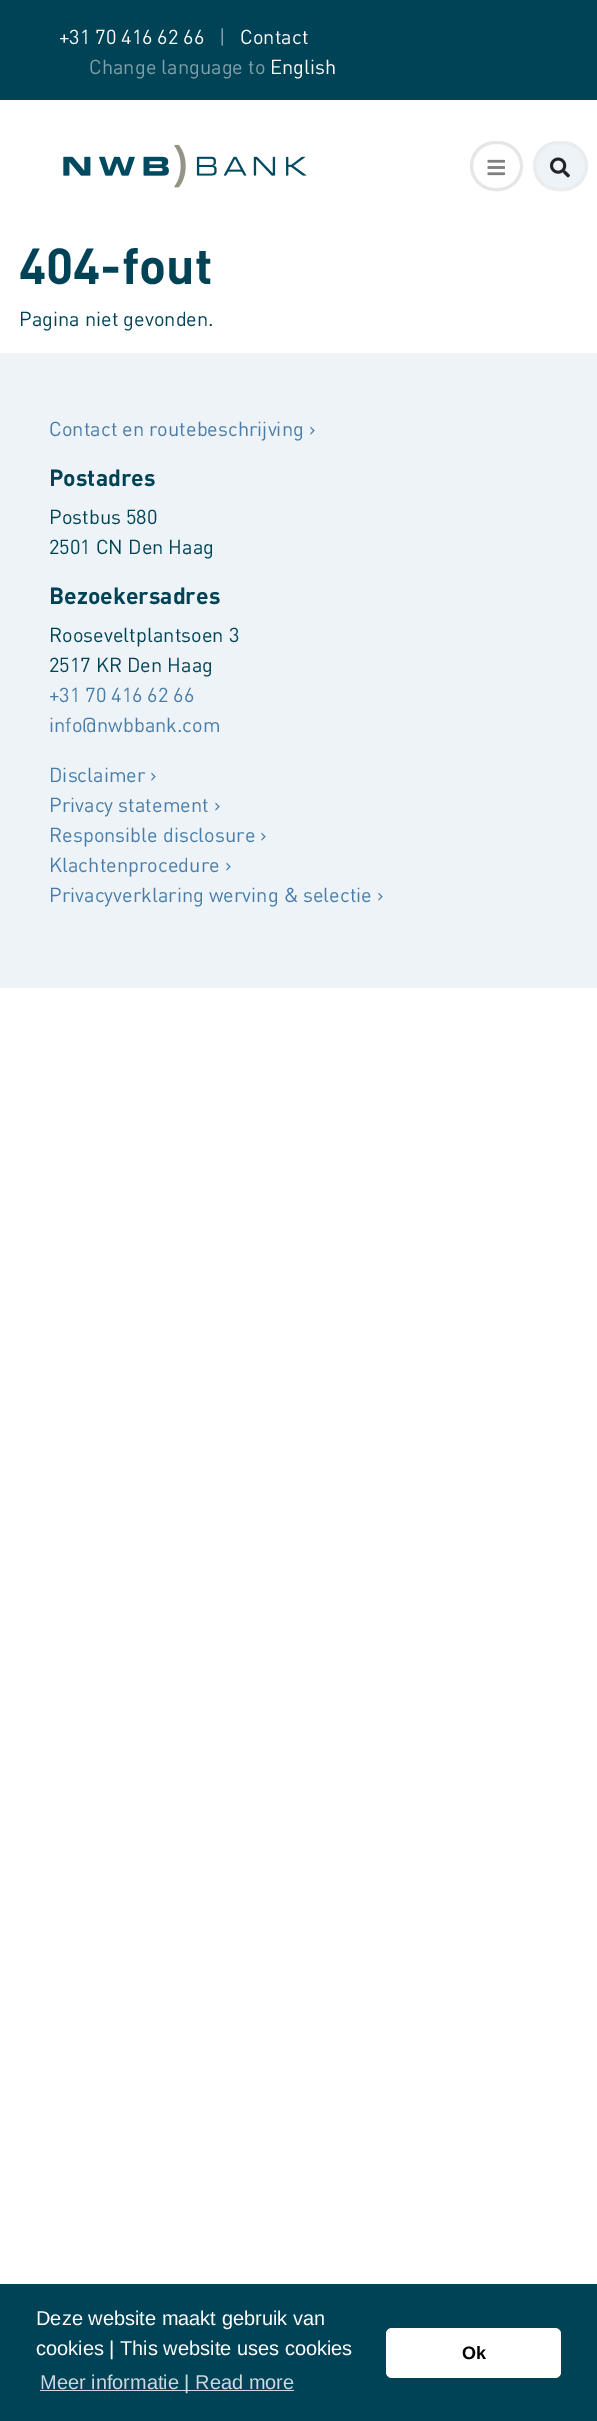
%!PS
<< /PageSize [597 2421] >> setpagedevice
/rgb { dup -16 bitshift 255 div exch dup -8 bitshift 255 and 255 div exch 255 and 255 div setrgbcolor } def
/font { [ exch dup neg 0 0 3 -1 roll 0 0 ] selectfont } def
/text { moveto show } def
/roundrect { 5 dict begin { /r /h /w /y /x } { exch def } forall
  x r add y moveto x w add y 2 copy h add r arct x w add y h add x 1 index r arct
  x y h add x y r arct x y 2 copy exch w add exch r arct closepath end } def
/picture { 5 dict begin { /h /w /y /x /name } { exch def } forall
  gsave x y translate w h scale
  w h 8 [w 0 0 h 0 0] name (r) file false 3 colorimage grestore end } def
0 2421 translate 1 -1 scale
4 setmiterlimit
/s1 { /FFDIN-Regular 20 font 16#FFFFFF rgb } def
/s2 { /FFDIN-Regular 20 font 16#80A1AB rgb } def
/s3 { /FFDIN-Bold 50 font 16#014356 rgb } def
/s4 { /FFDIN-Regular 20 font 16#014356 rgb } def
/s5 { /FFDIN-Regular 20 font 16#487DAA rgb } def
/s6 { /FFDIN-Bold 23 font 16#014356 rgb } def
/s7 { /LiberationSans-Regular 20 font 16#FFFFFF rgb } def
/s8 { /LiberationSans-Regular 20 font 16#CCD9DD rgb } def
/s9 { /LiberationSans-Bold 18 font 16#000000 rgb } def
16#FFFFFF rgb
0 0 597 2421 rectfill
16#014356 rgb
0 0 597 100 rectfill
s1
(+31 70 416 62 66) 59 44 text
s2
(|) 219 44 text
s1
(Contact) 240 44 text
s2
(Change language to) 89 74 text
s1
(English) 270 74 text
(pic1.raw) 63 144 244 44 picture
16#E6E6E6 rgb
3 setlinewidth
471.5 142.5 50 47 23.5 roundrect stroke
(pic2.raw) 487 159 18 17 picture
16#EDF3F7 rgb
534.5 142.5 52 47 23.5 roundrect gsave fill grestore
16#EAECEE rgb
stroke
(pic3.raw) 550 157 20 21 picture
s3
(404-fout) 19 284 text
s4
(Pagina niet gevonden.) 19 326 text
16#EDF3F7 rgb
0 353 597 635 rectfill
s5
(Contact en routebeschrijving ›) 49 436 text
s6
(Postadres) 49 486 text
s4
(Postbus 580) 49 524 text
(2501 CN Den Haag) 49 554 text
s6
(Bezoekersadres) 49 604 text
s4
(Rooseveltplantsoen 3) 49 642 text
(2517 KR Den Haag) 49 672 text
s5
(+31 70 416 62 66) 49 702 text
(info@nwbbank.com) 49 732 text
(Disclaimer ›) 49 782 text
(Privacy statement ›) 49 812 text
(Responsible disclosure ›) 49 842 text
(Klachtenprocedure ›) 49 872 text
(Privacyverklaring werving & selectie ›) 49 902 text
16#014356 rgb
0 2284 597 137 rectfill
s7
(Deze website maakt gebruik van) 36 2325 text
(cookies | This website uses cookies) 36 2355 text
16#CCD9DD rgb
40 2390 254 1 rectfill
(Meer informatie | Read more) 40 2389 text
16#FFFFFF rgb
386 2328 175 50 6 roundrect fill
s9
(Ok) 462 2359 text
showpage
